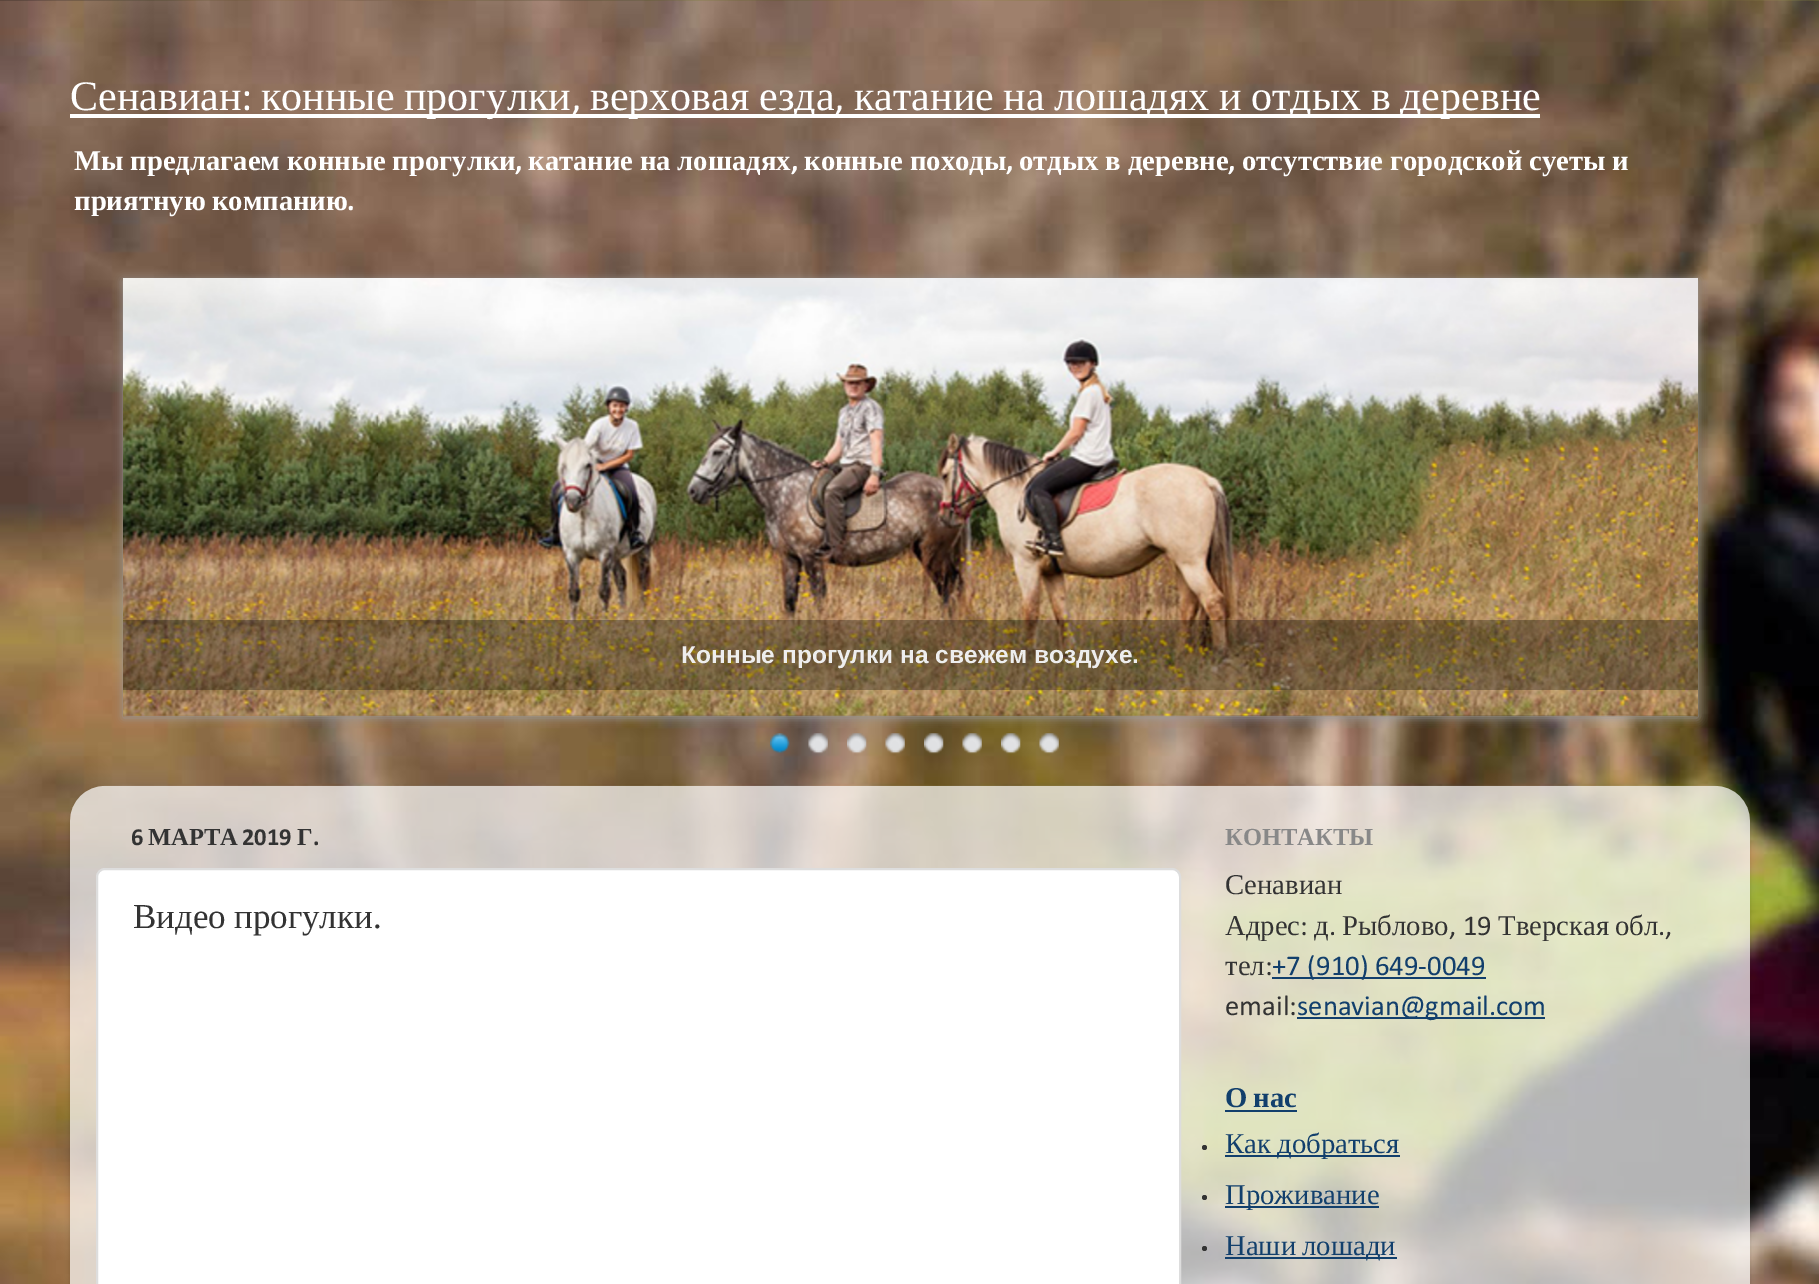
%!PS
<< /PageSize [1819 1284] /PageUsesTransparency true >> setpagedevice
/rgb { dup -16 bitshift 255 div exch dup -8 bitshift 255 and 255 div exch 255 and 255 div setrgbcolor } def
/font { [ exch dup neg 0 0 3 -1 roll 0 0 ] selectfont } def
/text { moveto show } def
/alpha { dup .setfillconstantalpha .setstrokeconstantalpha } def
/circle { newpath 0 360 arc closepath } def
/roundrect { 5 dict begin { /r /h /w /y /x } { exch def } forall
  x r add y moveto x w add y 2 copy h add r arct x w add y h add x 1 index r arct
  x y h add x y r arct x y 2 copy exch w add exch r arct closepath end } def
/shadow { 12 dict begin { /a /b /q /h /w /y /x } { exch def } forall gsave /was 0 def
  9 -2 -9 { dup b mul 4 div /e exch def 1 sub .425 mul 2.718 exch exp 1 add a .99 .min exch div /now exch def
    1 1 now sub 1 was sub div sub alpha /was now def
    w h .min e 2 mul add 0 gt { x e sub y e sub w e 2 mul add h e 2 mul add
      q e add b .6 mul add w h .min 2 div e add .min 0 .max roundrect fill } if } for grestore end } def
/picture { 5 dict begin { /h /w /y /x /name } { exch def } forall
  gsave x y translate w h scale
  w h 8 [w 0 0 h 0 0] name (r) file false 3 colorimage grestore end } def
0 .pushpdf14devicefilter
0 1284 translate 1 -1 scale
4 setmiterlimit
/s1 { /LiberationSerif-Regular 42 font 16#FFFFFF rgb } def
/s2 { /Calibri-Regular 42 font 16#FFFFFF rgb } def
/s3 { /Calibri-Bold 28.7 font 16#FFFFFF rgb } def
/s4 { /LiberationSans-Bold 24.5 font 16#EEEEEE rgb } def
/s5 { /Calibri-Bold 24.5 font 16#333333 rgb } def
/s6 { /LiberationSerif-Bold 24.5 font 16#333333 rgb } def
/s7 { /LiberationSerif-Bold 24.5 font 16#888888 rgb } def
/s8 { /LiberationSerif-Regular 28.7 font 16#333333 rgb } def
/s9 { /Calibri-Regular 28.7 font 16#333333 rgb } def
/s10 { /Calibri-Regular 28.7 font 16#123F6C rgb } def
/s11 { /LiberationSerif-Regular 28.7 font 16#123F6C rgb } def
16#FFFFFF rgb
0 0 1819 1284 rectfill
(pic1.raw) 0 0 1819 1284 picture
s1
(Сенавиан) 70 110 text
s2
(:) 241 110 text
70 114 1470 4 rectfill
/LiberationSerif-Regular 42 font
261 110 moveto -0.75 0 32 (конные прогулки) widthshow
s2
(,) 571 110 text
/LiberationSerif-Regular 42 font
590 110 moveto -0.75 0 32 (верховая езда) widthshow
s2
(,) 834 110 text
/LiberationSerif-Regular 42 font
854 110 moveto -0.75 0 32 (катание на лошадях и отдых в деревне) widthshow
/LiberationSerif-Bold 28.7 font
74 170 moveto -0.5 0 32 (Мы предлагаем конные прогулки) widthshow
s3
(,) 515 170 text
/LiberationSerif-Bold 28.7 font
528 170 moveto -0.5 0 32 (катание на лошадях) widthshow
s3
(,) 791 170 text
/LiberationSerif-Bold 28.7 font
804 170 moveto -0.5 0 32 (конные походы) widthshow
s3
(,) 1006 170 text
/LiberationSerif-Bold 28.7 font
1019 170 moveto -0.5 0 32 (отдых в деревне) widthshow
s3
(,) 1228 170 text
/LiberationSerif-Bold 28.7 font
1242 170 moveto -0.5 0 32 (отсутствие городской суеты и) widthshow
74 210 moveto -1 0 32 (приятную компанию) widthshow
s3
(.) 347 210 text
16#999999 rgb
123 280 1575 438 0 4.5 1 shadow
(pic2.raw) 123 278 1575 439 picture
0.3 alpha
16#000000 rgb
123 620 1575 70 rectfill
1 alpha
s4
(Конные прогулки на свежем воздухе.) 681 663 text
(pic3.raw) 770 733 20 21 picture
(pic4.raw) 808 733 20 21 picture
(pic5.raw) 847 733 20 21 picture
(pic6.raw) 885 733 20 21 picture
(pic7.raw) 924 733 20 21 picture
(pic8.raw) 962 733 20 21 picture
(pic9.raw) 1001 733 20 21 picture
(pic10.raw) 1039 733 20 21 picture
gsave
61 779 moveto 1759 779 lineto 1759 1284 lineto 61 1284 lineto closepath 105 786 moveto 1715 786 lineto 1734.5 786 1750 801.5 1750 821 curveto 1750 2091 lineto 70 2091 lineto 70 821 lineto 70 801.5 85.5 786 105 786 curveto closepath eoclip newpath
16#000000 rgb
70 788 1680 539 35 2.5 0.15 shadow
grestore
(pic11.raw) 70 785 1680 499 picture
s5
(6) 131 845 text
s6
(МАРТА) 148 845 text
s5
(2019) 242 845 text
s6
(Г) 297 845 text
s5
(.) 313 845 text
16#FFFFFF rgb
97 869 1083 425 8 roundrect gsave fill grestore
16#DDDDDD rgb
2 setlinewidth
stroke
/LiberationSerif-Regular 35 font
16#333333 rgb
133 928 moveto -0.75 0 32 (Видео прогулки.) widthshow
s7
(КОНТАКТЫ) 1225 845 text
s8
(Сенавиан) 1225 894 text
(Адрес) 1225 935 text
s9
(:) 1300 935 text
s8
(д) 1314 935 text
s9
(.) 1329 935 text
s8
(Рыблово) 1342 935 text
s9
(, 19) 1449 935 text
/LiberationSerif-Regular 28.7 font
1498 935 moveto -1 0 32 (Тверская обл) widthshow
s9
(.,) 1658 935 text
s8
(тел) 1225 975 text
s9
(:) 1265 975 text
16#123F6C rgb
1272 977 214 2 rectfill
(+7 \(910\) 649-0049) 1272 975 text
s9
(email:) 1225 1015 text
16#123F6C rgb
1297 1017 248 2 rectfill
(senavian@gmail.com) 1297 1015 text
/LiberationSerif-Bold 28.7 font
1225 1107 moveto -1 0 32 (О нас) widthshow
1225 1110 72 2 rectfill
16#333333 rgb
1204.5 1147.5 2.5 circle fill
16#123F6C rgb
1225 1155 175 2 rectfill
/LiberationSerif-Regular 28.7 font
1225 1153 moveto -1 0 32 (Как добраться) widthshow
16#333333 rgb
1204.5 1197.5 2.5 circle fill
16#123F6C rgb
1225 1206 154 2 rectfill
(Проживание) 1225 1204 text
16#333333 rgb
1204.5 1248.5 2.5 circle fill
16#123F6C rgb
1225 1257 172 2 rectfill
1225 1255 moveto -1 0 32 (Наши лошади) widthshow
.poppdf14devicefilter showpage
